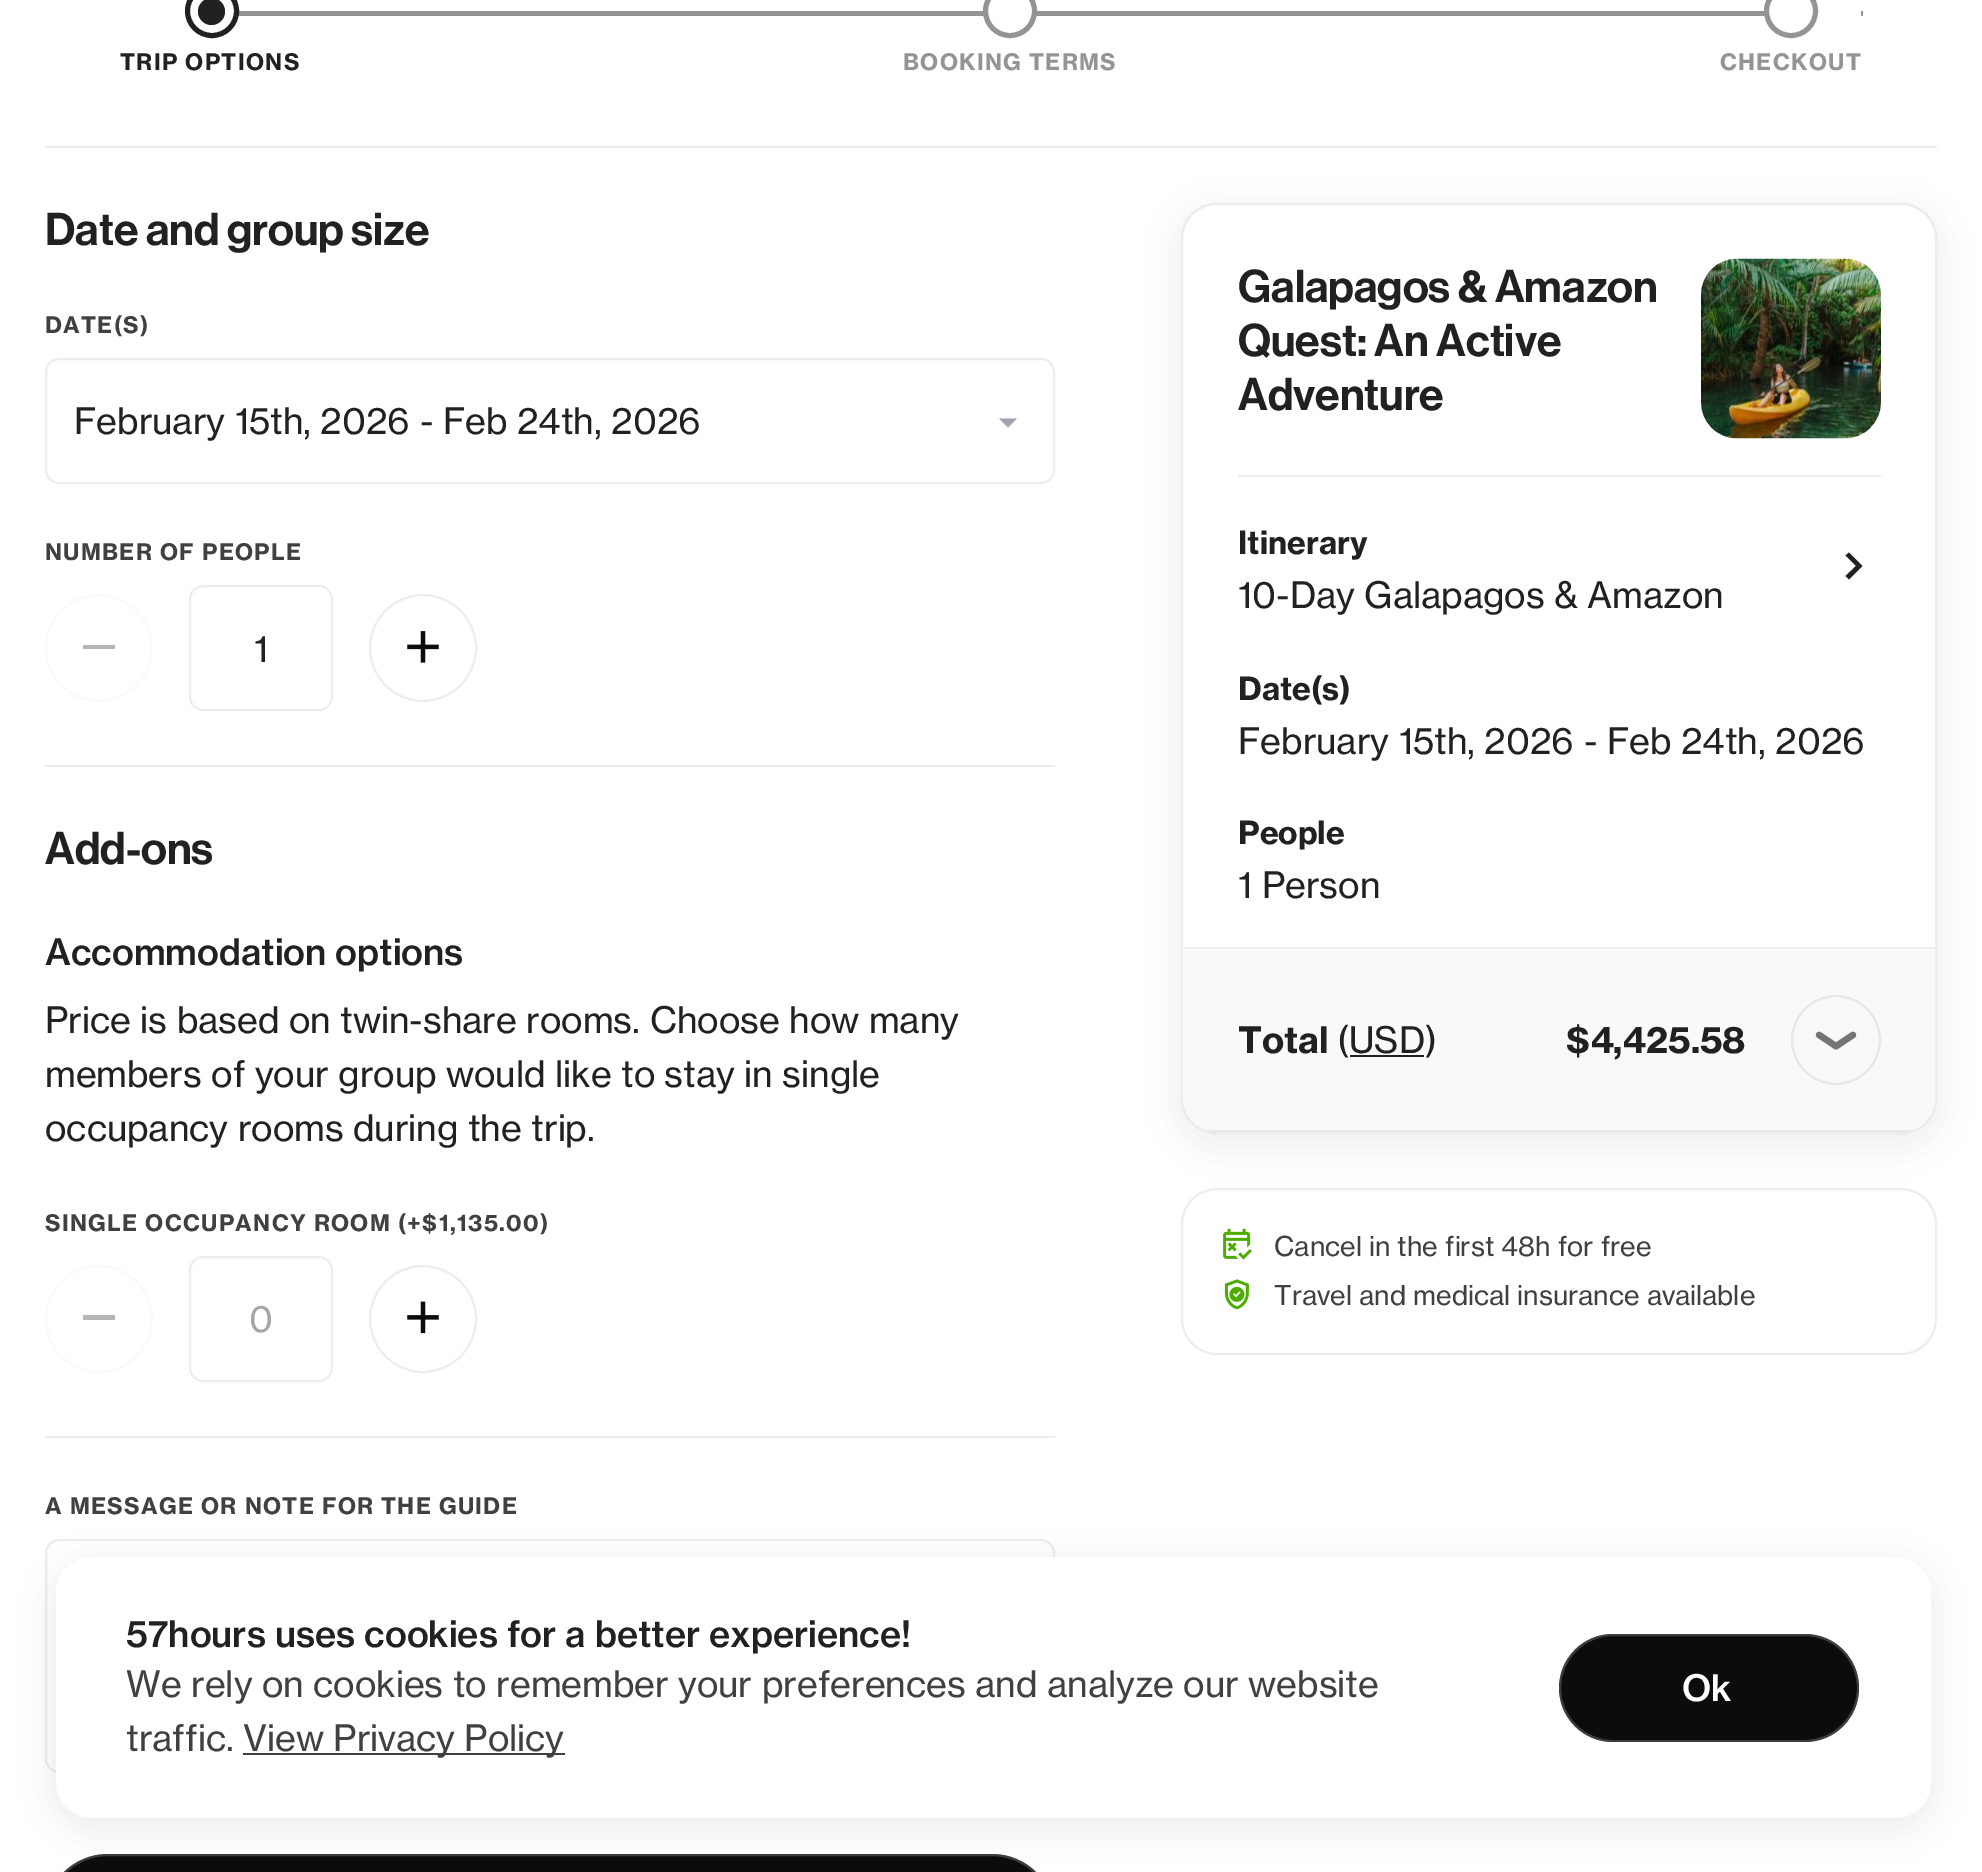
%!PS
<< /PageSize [1982 1872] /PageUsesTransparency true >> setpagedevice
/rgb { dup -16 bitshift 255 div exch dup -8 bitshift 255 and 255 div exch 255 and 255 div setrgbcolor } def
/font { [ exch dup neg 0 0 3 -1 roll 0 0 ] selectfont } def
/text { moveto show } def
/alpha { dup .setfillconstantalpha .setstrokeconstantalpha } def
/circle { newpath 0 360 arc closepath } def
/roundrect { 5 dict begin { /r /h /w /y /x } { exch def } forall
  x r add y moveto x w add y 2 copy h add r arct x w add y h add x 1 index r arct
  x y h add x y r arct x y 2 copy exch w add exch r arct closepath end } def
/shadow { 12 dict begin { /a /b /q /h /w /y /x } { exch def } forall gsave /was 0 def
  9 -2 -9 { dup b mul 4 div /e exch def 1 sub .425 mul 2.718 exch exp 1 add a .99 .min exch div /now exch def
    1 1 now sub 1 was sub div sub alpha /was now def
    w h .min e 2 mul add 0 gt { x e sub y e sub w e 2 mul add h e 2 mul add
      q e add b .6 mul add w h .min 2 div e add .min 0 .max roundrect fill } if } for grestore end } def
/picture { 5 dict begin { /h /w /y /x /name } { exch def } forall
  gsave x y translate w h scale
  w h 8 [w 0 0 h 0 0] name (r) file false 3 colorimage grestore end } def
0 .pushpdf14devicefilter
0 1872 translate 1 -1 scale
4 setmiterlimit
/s1 { /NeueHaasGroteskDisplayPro-Medium 45 font 16#212121 rgb } def
/s2 { /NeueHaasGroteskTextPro-Regular 36 font 16#212121 rgb } def
/s3 { /NeueHaasGroteskTextPro-Medium 36 font 16#212121 rgb } def
/s4 { /NeueHaasGroteskTextPro-Regular 36 font 16#A5A5A5 rgb } def
/s5 { /NeueHaasGroteskTextPro-Bold 31.5 font 16#212121 rgb } def
/s6 { /NeueHaasGroteskTextPro-Bold 36 font 16#212121 rgb } def
/s7 { /NeueHaasGroteskTextPro-Regular 27 font 16#404040 rgb } def
/s8 { /NeueHaasGroteskTextPro-Regular 36 font 16#404040 rgb } def
/s9 { /NeueHaasGroteskTextPro-Medium 36 font 16#FFFFFF rgb } def
16#FFFFFF rgb
0 0 1982 1872 rectfill
16#EDEDED rgb
45 146 1892 2 rectfill
16#949494 rgb
238 11 754 5 rectfill
1036 11 827 5 rectfill
16#FFFFFF rgb
212 11 24.5 circle gsave fill grestore
16#212121 rgb
5 setlinewidth
stroke
211.5 11.5 13.5 circle fill
/NeueHaasGroteskTextPro-Bold 22.5 font
120 70 moveto 1.35 0 (TRIP OPTIONS) ashow
16#FFFFFF rgb
1010 11 24.5 circle gsave fill grestore
16#949494 rgb
stroke
903 70 moveto 1.35 0 (BOOKING TERMS) ashow
16#FFFFFF rgb
1816 11 45 5 rectfill
1791 11 24.5 circle gsave fill grestore
16#949494 rgb
stroke
1720 70 moveto 1.35 0 (CHECKOUT) ashow
s1
(Date and group size) 45 245 text
/NeueHaasGroteskTextPro-Bold 22.5 font
16#404040 rgb
45 333 moveto 1.35 0 (DATE\(S\)) ashow
16#A5A3AE rgb
1008 427.5 moveto 999 418.5 lineto 1017 418.5 lineto closepath fill
16#EDEDED rgb
2 setlinewidth
46 359 1008 124 13 roundrect stroke
s2
(February 15th, 2026 - Feb 24th, 2026) 74 434 text
/NeueHaasGroteskTextPro-Bold 22.5 font
16#404040 rgb
45 560 moveto 1.35 0 (NUMBER OF PEOPLE) ashow
16#FAFAFA rgb
99 648 53 circle stroke
16#B6B6B6 rgb
83 645 32 4 rectfill
16#EDEDED rgb
190 586 142 124 13 roundrect stroke
s2
(1) 254 662 text
16#EDEDED rgb
423 648 53 circle stroke
(pic1.raw) 407 631 32 32 picture
45 765 1010 2 rectfill
s1
(Add-ons) 45 864 text
s3
(Accommodation options) 45 965 text
s2
(Price is based on twin-share rooms. Choose how many) 45 1033 text
(members of your group would like to stay in single) 45 1087 text
(occupancy rooms during the trip.) 45 1141 text
/NeueHaasGroteskTextPro-Bold 22.5 font
16#404040 rgb
45 1231 moveto 1.35 0 (SINGLE OCCUPANCY ROOM \(+$1,135.00\)) ashow
16#FAFAFA rgb
99 1319 53 circle stroke
16#B6B6B6 rgb
83 1315 32 5 rectfill
16#EDEDED rgb
190 1257 142 124 13 roundrect stroke
s4
(0) 249 1332 text
16#EDEDED rgb
423 1319 53 circle stroke
(pic2.raw) 407 1301 32 33 picture
45 1436 1010 2 rectfill
/NeueHaasGroteskTextPro-Bold 22.5 font
16#404040 rgb
45 1514 moveto 1.35 0 (A MESSAGE OR NOTE FOR THE GUIDE) ashow
16#EDEDED rgb
46 1540 1008 232 13 roundrect stroke
1182 1189 754 165 35 roundrect stroke
gsave
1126 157 moveto 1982 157 lineto 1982 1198 lineto 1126 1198 lineto closepath 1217 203 moveto 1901 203 lineto 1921 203 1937 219 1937 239 curveto 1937 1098 lineto 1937 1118 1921 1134 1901 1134 curveto 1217 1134 lineto 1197 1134 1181 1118 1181 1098 curveto 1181 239 lineto 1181 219 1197 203 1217 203 curveto closepath eoclip newpath
16#1E1E1E rgb
1181 212 756 931 36 18 0.08 shadow
grestore
0.08 alpha
16#1E1E1E rgb
1182 204 754 929 35 roundrect stroke
1 alpha
s1
(Galapagos & Amazon) 1238 302 text
(Quest: An Active) 1238 356 text
(Adventure) 1238 410 text
(pic3.raw) 1701 258 180 181 picture
16#EDEDED rgb
1238 475 643 2 rectfill
s5
(Itinerary) 1238 554 text
s2
(10-Day Galapagos & Amazon) 1238 608 text
1849 552.5 moveto 1845.5 555.5 lineto 1856 566 lineto 1845.5 576 lineto 1849 579.5 lineto 1862.5 566 lineto closepath fill
s5
(Date\(s\)) 1238 700 text
s2
(February 15th, 2026 - Feb 24th, 2026) 1238 754 text
s5
(People) 1238 844 text
s2
(1 Person) 1238 898 text
16#EDEDED rgb
1184 947 751 2 rectfill
16#F9F9F9 rgb
1184 950 moveto 1935 950 lineto 1935 1098 lineto 1935 1117 1920 1132 1901 1132 curveto 1218 1132 lineto 1199 1132 1184 1117 1184 1098 curveto closepath fill
gsave
1184 205 751 927 34 roundrect clip newpath
0.08 alpha
16#1E1E1E rgb
1207 1130 705 2 rectfill
grestore
s6
(Total) 1238 1053 text
s2
(\(USD\)) 1337 1053 text
1350 1055 74 2 rectfill
s6
($4,425.58) 1566 1053 text
16#E7E7E7 rgb
1836 1040 44 circle stroke
(pic4.raw) 1815 1031 42 19 picture
(pic5.raw) 1223 1228 29 32 picture
s7
(Cancel in the first 48h for free) 1274 1256 text
(pic6.raw) 1224 1279 25 31 picture
(Travel and medical insurance available) 1274 1305 text
16#0C0C0C rgb
45 1854 1010 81 63 roundrect fill
0.2 alpha
16#FFFFFF rgb
46 1855 1008 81 62 roundrect stroke
1 alpha
16#000000 rgb
56 1566 1875 261 36 18 0.08 shadow
16#FFFFFF rgb
56 1557 1875 261 36 roundrect fill
s3
(57hours uses cookies for a better experience!) 126 1647 text
s8
(We rely on cookies to remember your preferences and analyze our website) 126 1697 text
(traffic.) 126 1751 text
243 1753 322 2 rectfill
(View Privacy Policy) 243 1751 text
16#0C0C0C rgb
1559 1634 300 108 54 roundrect fill
0.2 alpha
16#FFFFFF rgb
1560 1635 298 106 53 roundrect stroke
1 alpha
s9
(Ok) 1682 1701 text
.poppdf14devicefilter showpage
